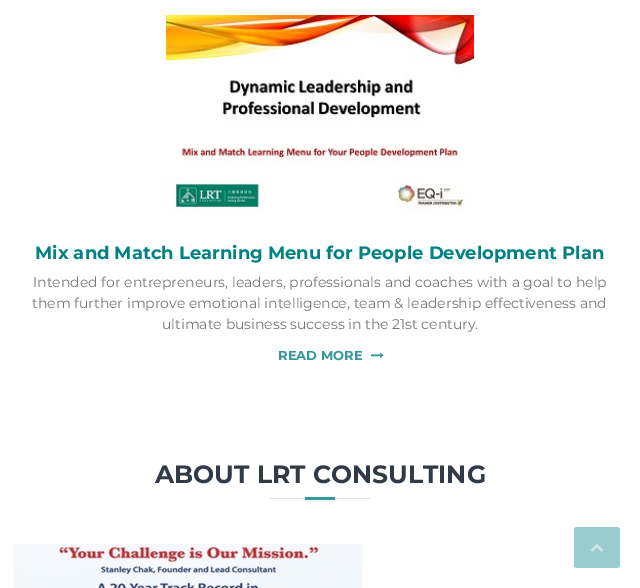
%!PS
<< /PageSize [640 588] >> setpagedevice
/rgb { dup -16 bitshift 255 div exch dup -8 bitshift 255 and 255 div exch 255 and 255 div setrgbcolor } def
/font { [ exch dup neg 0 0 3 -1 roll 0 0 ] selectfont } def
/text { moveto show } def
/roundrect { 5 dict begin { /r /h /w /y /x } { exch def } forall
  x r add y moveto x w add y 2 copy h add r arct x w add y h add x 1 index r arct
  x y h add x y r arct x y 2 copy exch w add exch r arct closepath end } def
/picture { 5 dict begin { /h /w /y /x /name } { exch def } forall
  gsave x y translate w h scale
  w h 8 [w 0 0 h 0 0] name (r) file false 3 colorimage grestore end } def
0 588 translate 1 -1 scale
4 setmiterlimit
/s1 { /Montserrat-Bold 18 font 16#008282 rgb } def
/s2 { /Montserrat-Regular 14 font 16#777777 rgb } def
/s3 { /Montserrat-Bold 13 font 16#339999 rgb } def
/s4 { /Montserrat-Bold 25 font 16#313B48 rgb } def
16#FFFFFF rgb
0 0 640 588 rectfill
(pic1.raw) 166 15 308 196 picture
s1
(Mix and Match Learning Menu for People Development Plan) 35 259 text
s2
(Intended for entrepreneurs, leaders, professionals and coaches with a goal to help) 33 287 text
(them further improve emotional intelligence, team & leadership effectiveness and) 32 308 text
(ultimate business success in the 21st century.) 162 329 text
s3
(READ MORE) 278 360 text
(pic2.raw) 371 352 13 7 picture
s4
(ABOUT LRT CONSULTING) 155 483 text
16#E1E1E1 rgb
270 498 100 1 rectfill
16#339999 rgb
305 497 30 3 rectfill
(pic3.raw) 13 544 350 44 picture
16#99CCCC rgb
574 527 46 41 3 roundrect fill
(pic4.raw) 590 544 14 8 picture
showpage
